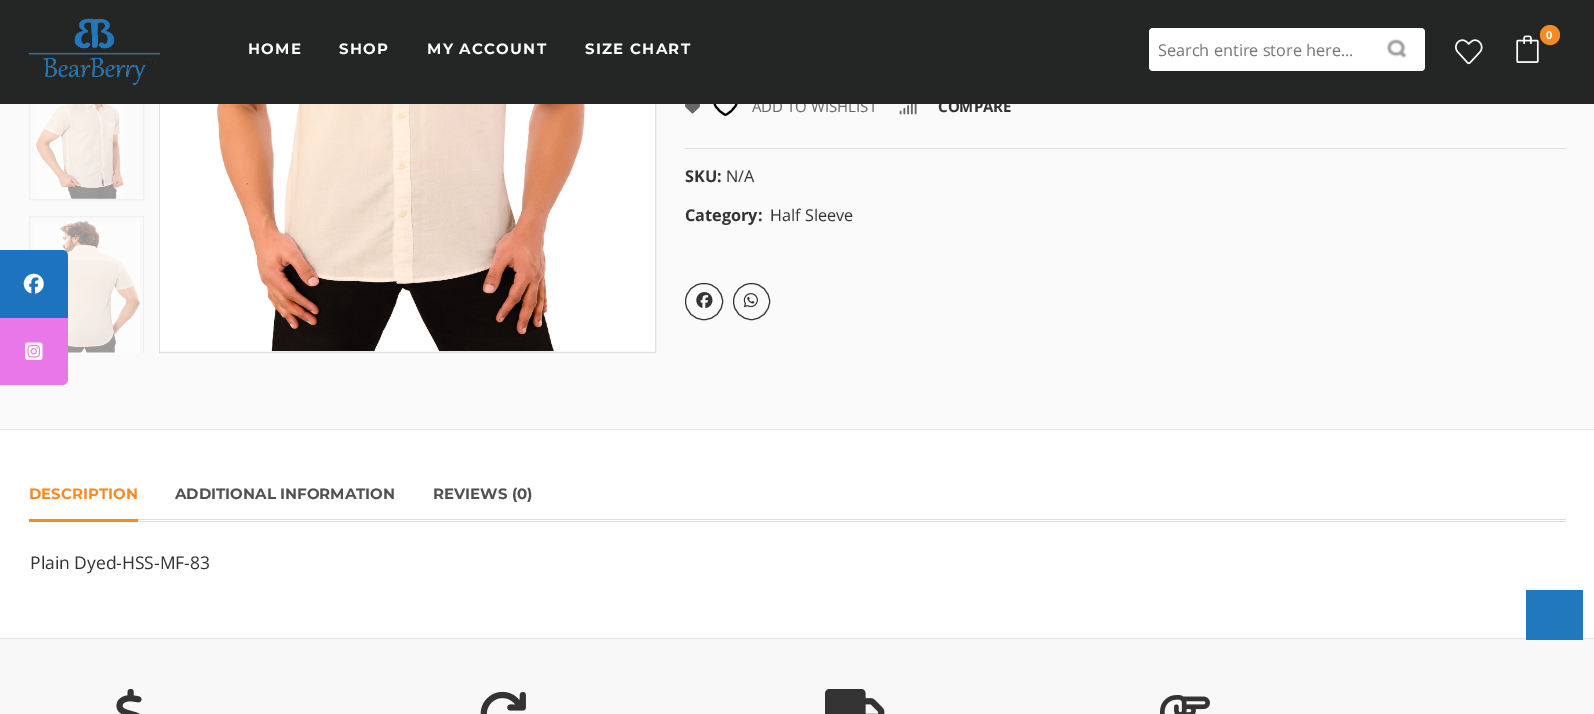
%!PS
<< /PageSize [1594 714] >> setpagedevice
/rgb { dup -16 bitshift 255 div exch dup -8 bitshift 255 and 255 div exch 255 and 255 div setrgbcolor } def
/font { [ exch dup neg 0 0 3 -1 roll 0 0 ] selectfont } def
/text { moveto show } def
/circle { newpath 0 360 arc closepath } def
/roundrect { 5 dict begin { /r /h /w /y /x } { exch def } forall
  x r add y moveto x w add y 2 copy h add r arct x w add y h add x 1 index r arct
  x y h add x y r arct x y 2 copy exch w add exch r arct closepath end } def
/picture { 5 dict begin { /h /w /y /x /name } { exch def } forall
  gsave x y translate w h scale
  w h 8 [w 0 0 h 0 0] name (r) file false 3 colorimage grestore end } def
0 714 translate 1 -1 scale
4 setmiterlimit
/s1 { /OpenSans-Regular 15 font 16#666666 rgb } def
/s2 { /OpenSans-Bold 15 font 16#333333 rgb } def
/s3 { /OpenSans-Regular 16.25 font 16#757575 rgb } def
/s4 { /OpenSans-Bold 16.25 font 16#333333 rgb } def
/s5 { /OpenSans-Regular 16.25 font 16#333333 rgb } def
/s6 { /Montserrat-Bold 15 font 16#F68B24 rgb } def
/s7 { /Montserrat-Bold 15 font 16#515151 rgb } def
/s8 { /OpenSans-Regular 17.5 font 16#333333 rgb } def
16#FFFFFF rgb
0 0 1594 714 rectfill
16#FAFAFA rgb
0 104 1594 325 rectfill
16#F0F0F0 rgb
29.5 60.5 114 139 rectstroke
16#E0E0E0 rgb
159.5 -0.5 496 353 rectstroke
16#000000 rgb
2 setlinewidth
1 setlinecap
1 setlinejoin
737.5 99.5 moveto 737.5 93 728 91.5 725.5 97 curveto 722.5 89.5 709.5 94.5 715.5 106 curveto 718 110 721.5 113 725.5 115 curveto 725.5 115 737.5 109 737.5 99.5 curveto closepath stroke
s1
(ADD TO WISHLIST) 752 112 text
s2
(COMPARE) 938 112 text
16#242626 rgb
0 0 1594 104 rectfill
(pic1.raw) 28 18 132 68 picture
/Montserrat-Bold 15 font
16#FFFFFF rgb
248 54 moveto 1.25 0 (HOME) ashow
339 54 moveto 1.25 0 (SHOP) ashow
427 54 moveto 1.25 0 (MY ACCOUNT) ashow
585 54 moveto 1.25 0 (SIZE CHART) ashow
(pic2.raw) 1516 35 23 28 picture
16#F68B24 rgb
1550 35 10 circle fill
/OpenSans-Bold 11 font
16#FFFFFF rgb
1546 39 moveto 1 0 (0) ashow
1149 28 275 43 4 roundrect fill
s3
(Search entire store here...) 1158 56 text
16#FFFFFF rgb
1388 28 37 43 4 roundrect fill
(pic3.raw) 1387 39 20 19 picture
(pic4.raw) 1455 39 28 26 picture
16#E5E5E5 rgb
0 429 1594 1 rectfill
(pic5.raw) 36 104 88 95 picture
gsave
29 0 115 353 rectclip
16#F0F0F0 rgb
1 setlinewidth
0 setlinecap
0 setlinejoin
29.5 216.5 114 139 rectstroke
grestore
(pic6.raw) 33 221 107 132 picture
(pic7.raw) 160 104 495 248 picture
(pic8.raw) 685 104 15 10 picture
(pic9.raw) 899 104 18 11 picture
16#DDDDDD rgb
685 148 881 1 rectfill
s4
(SKU:) 685 182 text
s5
(N/A) 726 182 text
s4
(Category:) 685 221 text
s5
(Half Sleeve) 770 221 text
1 setlinewidth
0 setlinecap
0 setlinejoin
685.5 283.5 37 36 18 roundrect stroke
(pic10.raw) 696 292 17 17 picture
751.5 301.5 18 circle stroke
(pic11.raw) 743 293 15 15 picture
16#DDDDDD rgb
138 519 1428 1 rectfill
138 521 1428 1 rectfill
16#F68B24 rgb
29 519 109 3 rectfill
s6
(DESCRIPTION) 29 499 text
s7
(ADDITIONAL INFORMATION) 175 499 text
(REVIEWS \(0\)) 433 499 text
s8
(Plain Dyed-HSS-MF-83) 30 569 text
16#1E73BE rgb
0 250 moveto 62 250 lineto 65.5 250 68 252.5 68 256 curveto 68 318 lineto 0 318 lineto closepath fill
(pic12.raw) 23 273 21 21 picture
16#E878E8 rgb
0 318 moveto 68 318 lineto 68 379 lineto 68 382.5 65.5 385 62 385 curveto 0 385 lineto closepath fill
(pic13.raw) 25 342 18 18 picture
16#F8F8F8 rgb
0 639 1594 75 rectfill
16#E5E5E5 rgb
0 638 1594 1 rectfill
16#2178BC rgb
1526 590 57 50 rectfill
(pic14.raw) 116 689 26 25 picture
(pic15.raw) 480 691 46 23 picture
(pic16.raw) 825 689 60 25 picture
(pic17.raw) 1160 695 50 19 picture
showpage
